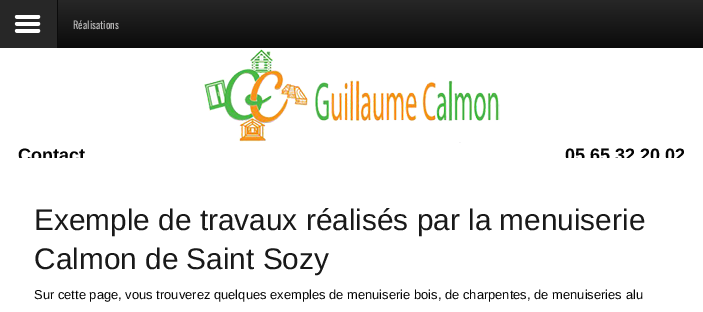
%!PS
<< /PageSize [703 312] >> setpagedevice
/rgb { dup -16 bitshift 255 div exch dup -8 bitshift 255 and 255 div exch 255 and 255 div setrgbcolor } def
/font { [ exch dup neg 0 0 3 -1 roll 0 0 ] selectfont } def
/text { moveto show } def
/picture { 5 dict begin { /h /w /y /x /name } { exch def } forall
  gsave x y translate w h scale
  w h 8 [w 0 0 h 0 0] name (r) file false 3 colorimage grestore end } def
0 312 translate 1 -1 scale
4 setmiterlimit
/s1 { /Oswald-Regular 10.5 font 16#BBBABA rgb } def
/s2 { /LiberationSans-Bold 18 font 16#040404 rgb } def
/s3 { /LiberationSans-Regular 29.8 font 16#191919 rgb } def
/s4 { /LiberationSans-Regular 12.95 font 16#040404 rgb } def
16#FFFFFF rgb
0 0 703 312 rectfill
gsave 58 0 moveto 703 0 lineto 703 48 lineto 58 48 lineto closepath clip newpath
<< /ShadingType 2 /ColorSpace /DeviceRGB /Coords [352 0 352 48] /Extend [true true] /Function << /FunctionType 2 /Domain [0 1] /C0 [0.153 0.153 0.153] /C1 [0.043 0.043 0.043] /N 1 >> >> shfill grestore
16#272727 rgb
0 0 57 48 rectfill
16#0B0B0B rgb
57 0 1 48 rectfill
(pic1.raw) 14 15 27 18 picture
s1
(Réalisations) 73 29 text
(pic2.raw) 202 49 298 94 picture
gsave
0 48 703 110 rectclip
s2
(Contact) 18 161 text
(05 65 32 20 02) 565 161 text
grestore
s3
(Exemple de travaux réalisés par la menuiserie) 34 230 text
(Calmon de Saint Sozy) 34 269 text
s4
(Sur cette page, vous trouverez quelques exemples de menuiserie bois, de charpentes, de menuiseries alu) 34 299 text
showpage
